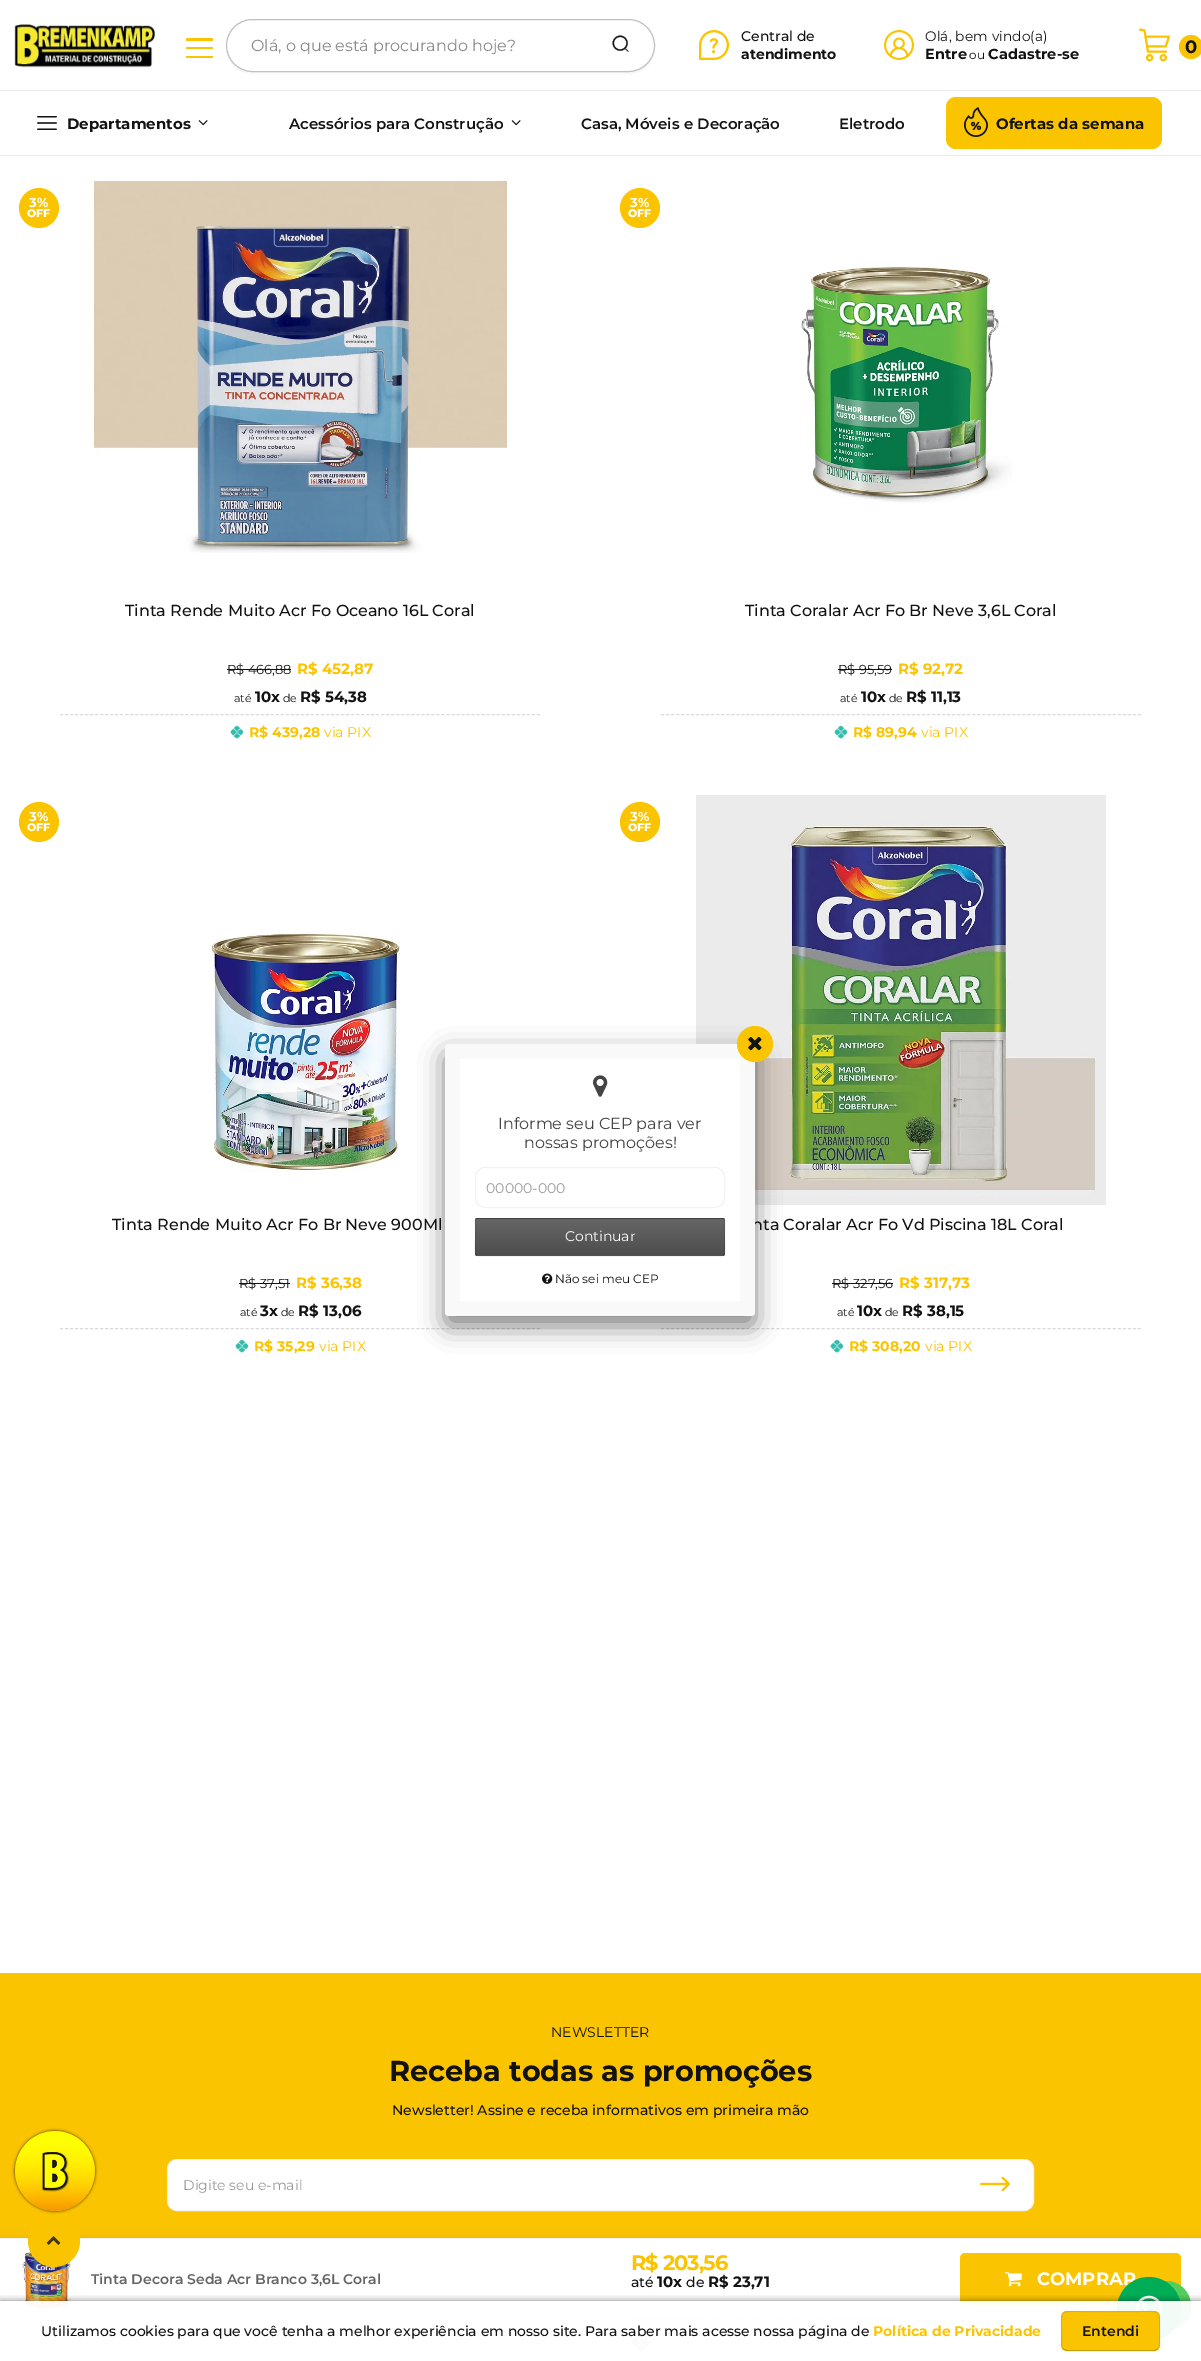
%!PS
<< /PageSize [1201 2361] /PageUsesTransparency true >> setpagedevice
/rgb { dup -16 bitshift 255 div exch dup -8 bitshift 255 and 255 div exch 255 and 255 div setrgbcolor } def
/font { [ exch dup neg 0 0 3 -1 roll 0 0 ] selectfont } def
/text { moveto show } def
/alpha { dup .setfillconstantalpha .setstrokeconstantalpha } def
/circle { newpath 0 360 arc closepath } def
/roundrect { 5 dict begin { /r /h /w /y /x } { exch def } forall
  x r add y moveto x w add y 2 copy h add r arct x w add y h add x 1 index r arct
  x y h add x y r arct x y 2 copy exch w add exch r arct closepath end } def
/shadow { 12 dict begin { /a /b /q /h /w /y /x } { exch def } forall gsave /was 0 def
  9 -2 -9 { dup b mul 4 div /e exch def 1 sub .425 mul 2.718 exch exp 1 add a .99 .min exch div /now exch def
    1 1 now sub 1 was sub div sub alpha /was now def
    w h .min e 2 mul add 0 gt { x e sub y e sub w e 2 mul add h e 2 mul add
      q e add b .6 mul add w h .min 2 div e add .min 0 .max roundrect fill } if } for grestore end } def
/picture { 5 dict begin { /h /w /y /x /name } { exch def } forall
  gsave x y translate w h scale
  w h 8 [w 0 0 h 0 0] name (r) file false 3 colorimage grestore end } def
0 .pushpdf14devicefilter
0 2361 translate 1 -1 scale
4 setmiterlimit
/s1 { /Montserrat-Regular 16 font 16#898989 rgb } def
/s2 { /Montserrat-Medium 14 font 16#121212 rgb } def
/s3 { /Montserrat-Bold 14 font 16#121212 rgb } def
/s4 { /Montserrat-Bold 18 font 16#121212 rgb } def
/s5 { /Montserrat-Bold 15 font 16#121212 rgb } def
/s6 { /Montserrat-SemiBold 15 font 16#121212 rgb } def
/s7 { /Montserrat-Bold 13 font 16#FFFFFF rgb } def
/s8 { /Montserrat-ExtraBold 11 font 16#FFFFFF rgb } def
/s9 { /Montserrat-Medium 16 font 16#121212 rgb } def
/s10 { /Montserrat-Regular 13 font 16#121212 rgb } def
/s11 { /Montserrat-Bold 15 font 16#FBC400 rgb } def
/s12 { /Montserrat-Regular 11 font 16#121212 rgb } def
/s13 { /Montserrat-Bold 14 font 16#FBC400 rgb } def
/s14 { /Montserrat-Regular 14 font 16#FBC400 rgb } def
/s15 { /Montserrat-Regular 14 font 16#121212 rgb } def
/s16 { /Montserrat-Bold 28.75 font 16#121212 rgb } def
/s17 { /Montserrat-Regular 14 font 16#999999 rgb } def
/s18 { /Montserrat-SemiBold 14 font 16#646464 rgb } def
/s19 { /Montserrat-Bold 18 font 16#FFFFFF rgb } def
/s20 { /Montserrat-Regular 16 font 16#444444 rgb } def
/s21 { /Montserrat-Regular 14 font 16#FFFFFF rgb } def
/s22 { /Montserrat-Regular 12 font 16#121212 rgb } def
/s23 { /Montserrat-SemiBold 14 font 16#121212 rgb } def
16#FFFFFF rgb
0 0 1201 2361 rectfill
(pic1.raw) 14 24 141 44 picture
16#FBC400 rgb
186 38 27 3 1.5 roundrect fill
186 47 27 2 1 roundrect fill
186 56 27 2 1 roundrect fill
16#000000 rgb
226 21 429 53 26.5 1 0.04 shadow
16#FFFFFF rgb
226.5 19.5 428 52 26 roundrect gsave fill grestore
16#C1C1C1 rgb
stroke
s1
(Olá, o que está procurando hoje?) 251 51 text
(pic2.raw) 612 35 17 17 picture
(pic3.raw) 699 30 30 30 picture
s2
(Central de) 741 41 text
s3
(atendimento) 741 59 text
(pic4.raw) 884 30 30 30 picture
/Montserrat-Regular 13.75 font
925 41 moveto 0.1 0 (Olá, bem vindo\(a\)) ashow
/Montserrat-Bold 14.5 font
925 59 moveto 0.1 0 (Entre) ashow
/Montserrat-Regular 12 font
969 59 moveto 0.1 0 (ou) ashow
/Montserrat-Bold 14.5 font
988 59 moveto 0.1 0 (Cadastre-se) ashow
(pic5.raw) 1138 28 33 34 picture
16#FBC400 rgb
1191 47 12 circle fill
s4
(0) 1185 53 text
16#EBEBEB rgb
0 90 1201 1 rectfill
16#E9E9E9 rgb
0 155 1201 1 rectfill
(pic6.raw) 37 116 20 14 picture
s5
(Departamentos) 67 129 text
(pic7.raw) 198 120 10 6 picture
s6
(Acessórios para Construção) 289 129 text
(pic7.raw) 511 120 10 6 picture
(Casa, Móveis e Decoração) 581 129 text
(Eletrodo) 839 129 text
16#FBC400 rgb
946 97 216 52 10 roundrect fill
(pic8.raw) 964 107 24 30 picture
s5
(Ofertas da semana) 996 129 text
16#FBC400 rgb
39 208 20 circle fill
s7
(3%) 29 207 text
s8
(OFF) 27 217 text
(pic9.raw) 94 181 413 372 picture
s9
(Tinta Rende Muito Acr Fo Oceano 16L Coral) 125 616 text
s10
(R$ 466,88) 227 674 text
227 669 64 1 rectfill
s11
(R$ 452,87) 297 674 text
s12
(até) 234 702 text
s5
(10x) 255 702 text
s12
(de) 283 702 text
s5
(R$ 54,38) 300 702 text
16#D9D9D9 rgb
[3 2.02] 0 setdash
60 714.5 moveto 540 714.5 lineto stroke
(pic10.raw) 230 725 14 14 picture
s13
(R$ 439,28) 249 737 text
s14
(via PIX) 324 737 text
640 208 20 circle fill
s7
(3%) 630 207 text
s8
(OFF) 628 217 text
(pic11.raw) 801 267 211 236 picture
s9
(Tinta Coralar Acr Fo Br Neve 3,6L Coral) 745 616 text
s10
(R$ 95,59) 838 674 text
838 669 54 1 rectfill
s11
(R$ 92,72) 898 674 text
s12
(até) 840 702 text
s5
(10x) 861 702 text
s12
(de) 889 702 text
s5
(R$ 11,13) 906 702 text
16#D9D9D9 rgb
661 714.5 moveto 1141 714.5 lineto stroke
(pic10.raw) 834 725 14 14 picture
s13
(R$ 89,94) 853 737 text
s14
(via PIX) 921 737 text
39 822 20 circle fill
s7
(3%) 29 821 text
s8
(OFF) 27 831 text
(pic12.raw) 211 932 190 240 picture
s9
(Tinta Rende Muito Acr Fo Br Neve 900Ml) 112 1230 text
s10
(R$ 37,51) 239 1288 text
239 1283 51 1 rectfill
s11
(R$ 36,38) 296 1288 text
s12
(até) 240 1316 text
s5
(3x) 260 1316 text
s12
(de) 281 1316 text
s5
(R$ 13,06) 298 1316 text
16#D9D9D9 rgb
60 1328.5 moveto 540 1328.5 lineto stroke
(pic10.raw) 235 1339 14 14 picture
s13
(R$ 35,29) 254 1351 text
s14
(via PIX) 319 1351 text
640 822 20 circle fill
s7
(3%) 630 821 text
s8
(OFF) 628 831 text
(pic13.raw) 696 795 410 410 picture
s9
(nta Coralar Acr Fo Vd Piscina 18L Coral) 752 1230 text
s10
(R$ 327,56) 832 1288 text
832 1283 61 1 rectfill
s11
(R$ 317,73) 899 1288 text
s12
(até) 837 1316 text
s5
(10x) 857 1316 text
s12
(de) 885 1316 text
s5
(R$ 38,15) 902 1316 text
16#D9D9D9 rgb
661 1328.5 moveto 1141 1328.5 lineto stroke
(pic10.raw) 830 1339 14 14 picture
s13
(R$ 308,20) 849 1351 text
s14
(via PIX) 925 1351 text
0 1973 1201 265 rectfill
s15
(NEWSLETTER) 551 2037 text
s16
(Receba todas as promoções) 389 2081 text
s2
(Newsletter! Assine e receba informativos em primeira mão) 392 2115 text
16#FFFFFF rgb
167.5 2159.5 866 51 9.5 roundrect gsave fill grestore
16#F2F2F2 rgb
[] 0 setdash
stroke
s17
(Digite seu e-mail) 183 2190 text
(pic14.raw) 980 2176 30 16 picture
16#000000 rgb
0 2240 1201 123 0 6 0.09 shadow
16#FFFFFF rgb
0 2239 1201 122 rectfill
16#F3F3F3 rgb
0 2238 1201 1 rectfill
(pic15.raw) 20 2251 51 58 picture
s18
(Tinta Decora Seda Acr Branco 3,6L Coral) 91 2284 text
/Montserrat-Bold 21 font
16#FBC400 rgb
631 2270 moveto -1 0 (R$ 203,56) ashow
s2
(até) 631 2287 text
s5
(10x) 657 2287 text
s2
(de) 686 2287 text
s5
(R$ 23,71) 708 2287 text
16#D9D9D9 rgb
[3 2.02] 0 setdash
631 2318.5 moveto 900 2318.5 lineto stroke
(pic16.raw) 631 2333 19 19 picture
16#FBC400 rgb
960 2253 221 52 5 roundrect fill
(pic17.raw) 1005 2272 17 15 picture
s19
(COMPRAR) 1037 2285 text
16#000000 rgb
445 1054 310 272 4 12.5 0.5 shadow
16#F9F9F9 rgb
445 1044 310 272 4 roundrect fill
16#FFFFFF rgb
460 1059 280 242 rectfill
16#FBC400 rgb
755 1044 18 circle fill
(pic18.raw) 748 1037 14 14 picture
(pic19.raw) 593 1075 15 22 picture
s20
(Informe seu CEP para ver) 498 1129 text
(nossas promoções!) 524 1148 text
16#F2F2F2 rgb
[] 0 setdash
475.5 1167.5 249 40 9.5 roundrect stroke
s17
(00000-000) 486 1193 text
16#555555 rgb
475 1218 250 38 2 roundrect fill
0.1 alpha
gsave 475 1218 moveto 725 1218 lineto 725 1219 lineto 475 1219 lineto closepath clip newpath
<< /ShadingType 2 /ColorSpace /DeviceRGB /Coords [600 1183 600 1219] /Extend [true true] /Function << /FunctionType 2 /Domain [0 1] /C0 [1 1 1] /C1 [0 0 0] /N 1 >> >> shfill grestore
gsave 475 1219 moveto 725 1219 lineto 725 1255 lineto 475 1255 lineto closepath clip newpath
<< /ShadingType 2 /ColorSpace /DeviceRGB /Coords [600 1219 600 1255] /Extend [true true] /Function << /FunctionType 2 /Domain [0 1] /C0 [1 1 1] /C1 [0 0 0] /N 1 >> >> shfill grestore
gsave 475 1255 moveto 725 1255 lineto 725 1256 lineto 475 1256 lineto closepath clip newpath
<< /ShadingType 2 /ColorSpace /DeviceRGB /Coords [600 1255 600 1291] /Extend [true true] /Function << /FunctionType 2 /Domain [0 1] /C0 [1 1 1] /C1 [0 0 0] /N 1 >> >> shfill grestore
0.2 alpha
16#000000 rgb
724 1255 moveto 723 1255.5 lineto 477 1255.5 lineto 476 1255 lineto stroke
0.1 alpha
476 1255 moveto 474.5 1253.5 475.5 1239.5 475.5 1237 curveto 475.5 1225.5 lineto 475.5 1223 474.5 1218.5 477 1218.5 curveto 723 1218.5 lineto 725.5 1218.5 724.5 1223 724.5 1225.5 curveto 724.5 1237 lineto 724.5 1239.5 725.5 1253.5 724 1255 curveto stroke
1 alpha
s21
(Continuar) 565 1241 text
(pic20.raw) 542 1273 11 11 picture
s22
(Não sei meu CEP) 555 1283 text
16#FBC400 rgb
54 2241 26 circle fill
16#000000 rgb
15 2131 80 80 40 1.5 0.75 shadow
(pic21.raw) 15 2131 80 80 picture
(pic22.raw) 46 2236 15 9 picture
16#53CE5D rgb
1166 2306 25 circle fill
16#00AD57 rgb
1149 2309 32 circle fill
(pic23.raw) 1135 2295 28 22 picture
gsave
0 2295 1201 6 rectclip
16#000000 rgb
0 2301 1201 60 0 3.5 0.5 shadow
grestore
0.95 alpha
16#FFFFFF rgb
20 2301 1171 51 rectfill
1 alpha
s2
(Utilizamos cookies para que você tenha a melhor experiência em nosso site. Para saber mais acesse nossa página de) 41 2336 text
s13
(Política de Privacidade) 873 2336 text
1061 2311 99 40 6 roundrect fill
0.2 alpha
16#000000 rgb
1158 2349 moveto 1154.5 2350.5 lineto 1066.5 2350.5 lineto 1063 2349 lineto stroke
0.1 alpha
1063 2349 moveto 1061 2346.5 1061.5 2343 1061.5 2340.5 curveto 1061.5 2331 lineto 1061.5 2309 1059 2311.5 1081.5 2311.5 curveto 1139.5 2311.5 lineto 1162 2311.5 1159.5 2309 1159.5 2331 curveto 1159.5 2340.5 lineto 1159.5 2343 1160 2346.5 1158 2349 curveto stroke
1 alpha
s23
(Entendi) 1082 2336 text
.poppdf14devicefilter showpage
